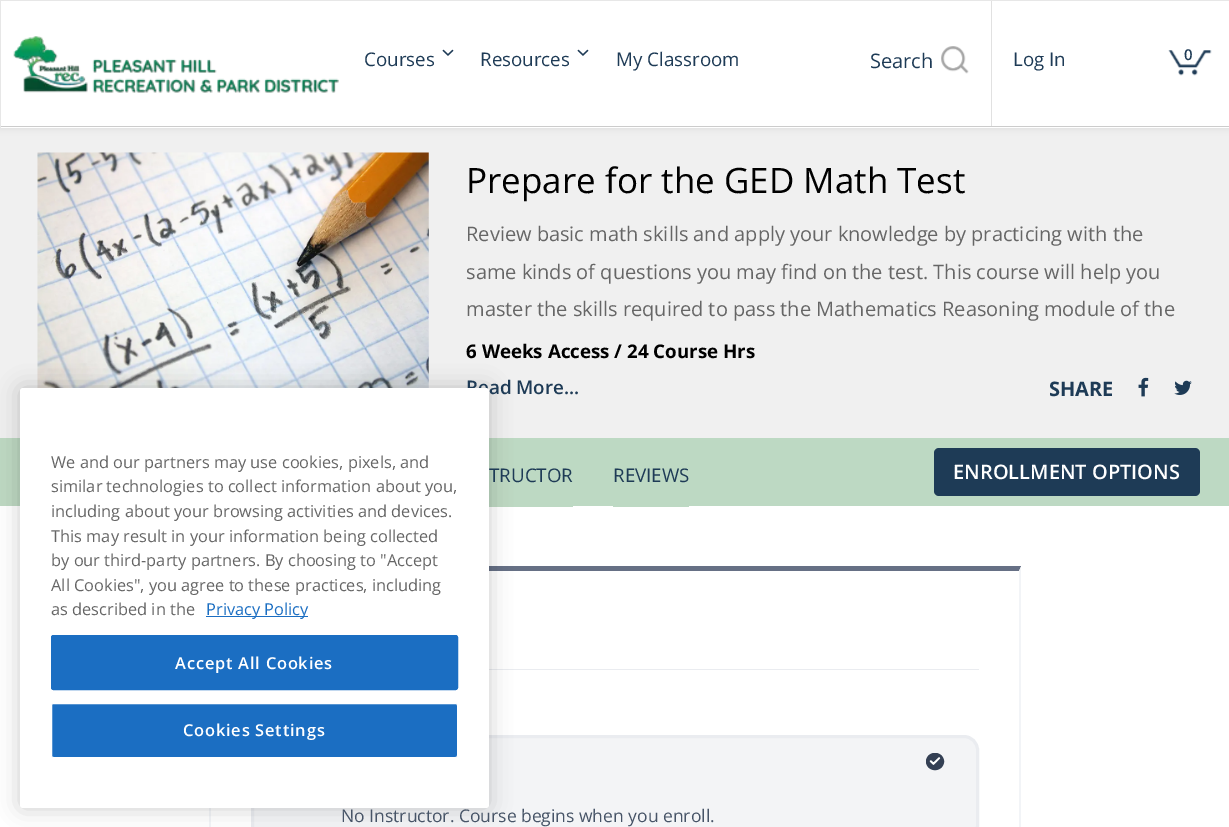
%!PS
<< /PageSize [1229 827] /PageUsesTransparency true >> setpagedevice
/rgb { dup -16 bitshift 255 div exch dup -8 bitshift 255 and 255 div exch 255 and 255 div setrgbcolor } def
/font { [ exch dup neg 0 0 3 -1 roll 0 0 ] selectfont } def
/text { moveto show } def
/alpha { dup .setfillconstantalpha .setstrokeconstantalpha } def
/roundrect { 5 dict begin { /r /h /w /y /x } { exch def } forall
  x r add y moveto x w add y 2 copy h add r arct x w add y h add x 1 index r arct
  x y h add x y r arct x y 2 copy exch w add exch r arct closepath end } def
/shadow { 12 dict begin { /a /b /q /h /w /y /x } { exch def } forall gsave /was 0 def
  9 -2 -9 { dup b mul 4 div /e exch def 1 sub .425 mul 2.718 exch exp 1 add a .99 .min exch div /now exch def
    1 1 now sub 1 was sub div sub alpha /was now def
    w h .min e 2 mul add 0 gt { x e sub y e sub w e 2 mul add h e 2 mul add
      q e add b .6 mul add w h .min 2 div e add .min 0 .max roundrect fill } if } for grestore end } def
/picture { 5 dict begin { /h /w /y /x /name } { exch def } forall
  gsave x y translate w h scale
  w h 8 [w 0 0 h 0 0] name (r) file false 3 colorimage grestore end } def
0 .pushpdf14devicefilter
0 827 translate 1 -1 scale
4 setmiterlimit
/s1 { /OpenSans-SemiBold 18.75 font 16#1E3B56 rgb } def
/s2 { /OpenSans-Regular 16.4 font 16#666666 rgb } def
/s3 { /OpenSans-Regular 16.4 font 16#1B6EC2 rgb } def
/s4 { /OpenSans-Regular 18.75 font 16#1E3B56 rgb } def
/s5 { /OpenSans-Regular 20 font 16#1E3B56 rgb } def
/s6 { /OpenSans-SemiBold 15 font 16#1E3B56 rgb } def
/s7 { /OpenSans-Regular 35 font 16#000000 rgb } def
/s8 { /OpenSans-Regular 20 font 16#666666 rgb } def
/s9 { /OpenSans-Bold 18.75 font 16#000000 rgb } def
/s10 { /OpenSans-Bold 20 font 16#1E3B56 rgb } def
/s11 { /OpenSans-SemiBold 20 font 16#FFFFFF rgb } def
/s12 { /OpenSans-Regular 17.5 font 16#475467 rgb } def
16#FFFFFF rgb
0 0 1229 827 rectfill
16#F0F0F0 rgb
0 128 1229 310 rectfill
(pic5.raw) 37 152 392 236 picture
16#BDD9C3 rgb
0 438 1229 68 rectfill
489 506 84 1 rectfill
16#667085 rgb
209 567 moveto 209 566 lineto 1021 566 lineto 1019 571 lineto 211 571 lineto closepath fill
16#F2F4F7 rgb
211 571 moveto 211 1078 lineto 211 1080 212 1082 213 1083 curveto 212 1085 lineto 210 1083 209 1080 209 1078 curveto 209 567 lineto closepath fill
16#EAECF0 rgb
489 669 490 1 rectfill
16#F3F4F6 rgb
252.5 736.5 725 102 13.5 roundrect gsave fill grestore
16#EAECF0 rgb
3 setlinewidth
stroke
16#000000 rgb
20 388 469 420 3 11 0.2 shadow
s1
(Read More...) 466 394 text
16#FFFFFF rgb
20 388 469 420 3 roundrect fill
s2
(We and our partners may use cookies, pixels, and) 51 468 text
(similar technologies to collect information about you,) 51 492 text
(including about your browsing activities and devices.) 51 517 text
(This may result in your information being collected) 51 542 text
(by our third-party partners. By choosing to "Accept) 51 566 text
(All Cookies", you agree to these practices, including) 51 591 text
(as described in the) 51 615 text
16#1B6EC2 rgb
206 616 102 1 rectfill
(Privacy Policy) 206 615 text
51.5 635.5 406 54 2 roundrect gsave fill grestore
1 setlinewidth
stroke
/OpenSans-SemiBold 16.4 font
16#FFFFFF rgb
175 669 moveto 0.8 0 (Accept All Cookies) ashow
16#1B6EC2 rgb
51.5 703.5 406 54 2 roundrect gsave fill grestore
16#FFFFFF rgb
stroke
183 736 moveto 0.8 0 (Cookies Settings) ashow
16#000000 rgb
0 1 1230 128 0 3 0.07 shadow
16#FFFFFF rgb
1 1 1228 127 rectfill
16#E7E7E7 rgb
0 0 1229 1 rectfill
16#CCCCCC rgb
0 126 1229 1 rectfill
16#E7E7E7 rgb
0 0 1 128 rectfill
(pic1.raw) 13 36 326 57 picture
s4
(Courses) 364 66 text
(pic2.raw) 442 49 12 7 picture
(Resources) 480 66 text
(pic2.raw) 577 49 12 7 picture
(My Classroom) 616 66 text
s5
(Search) 870 68 text
(pic3.raw) 941 46 28 28 picture
16#E1E1E1 rgb
991 1 1 125 rectfill
s4
(Log In) 1013 66 text
(pic4.raw) 1168 50 44 26 picture
s6
(0) 1184 60 text
s7
(Prepare for the GED Math Test) 466 193 text
s8
(Review basic math skills and apply your knowledge by practicing with the) 466 241 text
(same kinds of questions you may find on the test. This course will help you) 466 279 text
(master the skills required to pass the Mathematics Reasoning module of the) 466 316 text
s9
(6 Weeks Access / 24 Course Hrs) 466 358 text
s10
(SHARE) 1049 396 text
(pic6.raw) 1138 377 11 20 picture
(pic7.raw) 1174 380 18 15 picture
s4
(TRUCTOR) 489 482 text
16#BDD9C3 rgb
613 506 76 1 rectfill
s4
(REVIEWS) 613 482 text
934 448 266 48 5 roundrect fill
s11
(ENROLLMENT OPTIONS) 953 479 text
16#F2F4F7 rgb
1021 567 moveto 1021 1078 lineto 1021 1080 1020 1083 1018 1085 curveto 1017 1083 lineto 1018 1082 1019 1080 1019 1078 curveto 1019 571 lineto closepath fill
16#344054 rgb
926.5 753.5 17 16 8 roundrect gsave fill grestore
stroke
(pic8.raw) 929 757 12 8 picture
s12
(No Instructor. Course begins when you enroll.) 341 822 text
.poppdf14devicefilter showpage
